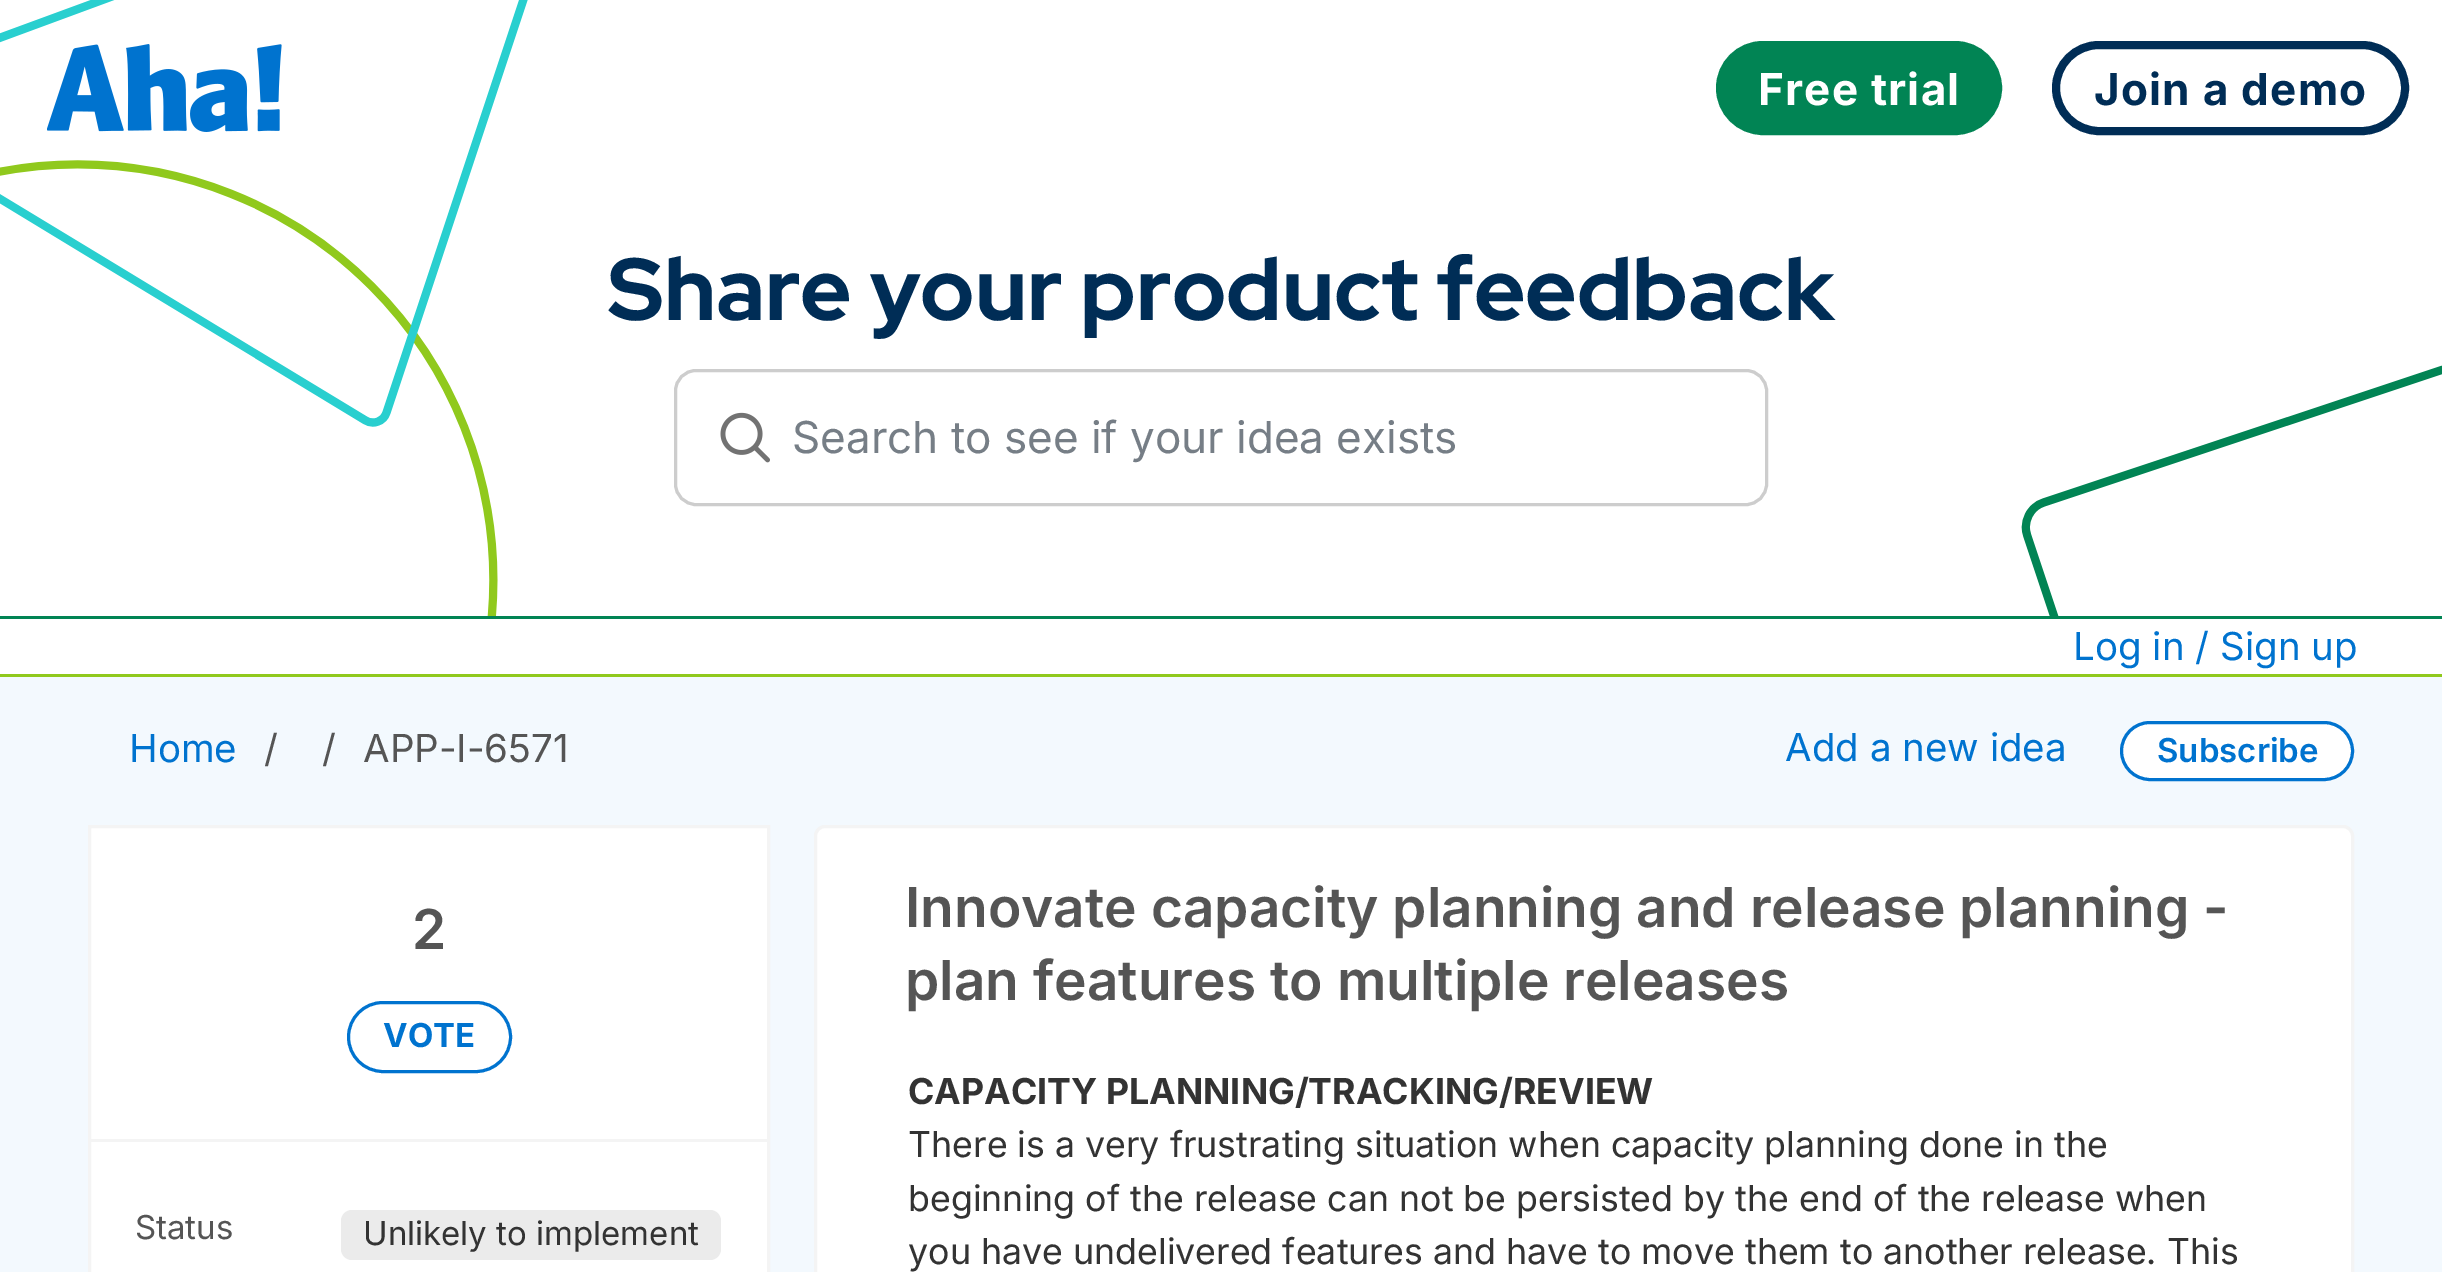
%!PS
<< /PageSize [2442 1272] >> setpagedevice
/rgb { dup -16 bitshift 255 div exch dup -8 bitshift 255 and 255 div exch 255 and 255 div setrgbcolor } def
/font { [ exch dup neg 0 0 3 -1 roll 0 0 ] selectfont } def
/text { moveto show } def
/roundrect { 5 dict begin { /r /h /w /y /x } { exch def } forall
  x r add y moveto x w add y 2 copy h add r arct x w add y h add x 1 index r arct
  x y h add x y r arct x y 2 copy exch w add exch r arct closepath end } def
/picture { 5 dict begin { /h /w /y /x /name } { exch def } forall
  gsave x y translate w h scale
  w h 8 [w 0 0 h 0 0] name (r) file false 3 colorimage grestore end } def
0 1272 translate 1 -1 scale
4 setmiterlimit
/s1 { /RedHatDisplay-ExtraBold 88 font 16#002D56 rgb } def
/s2 { /Inter-Regular 44 font 16#767E86 rgb } def
/s3 { /Inter-Regular 38.5 font 16#0073CF rgb } def
/s4 { /Inter-Regular 38.5 font 16#555555 rgb } def
/s5 { /Inter-SemiBold 33 font 16#0073CF rgb } def
/s6 { /Inter-SemiBold 55 font 16#555555 rgb } def
/s7 { /Inter-Bold 33 font 16#0073CF rgb } def
/s8 { /Inter-Regular 33 font 16#555555 rgb } def
/s9 { /Inter-Regular 33 font 16#333333 rgb } def
/s10 { /Inter-Bold 35.75 font 16#333333 rgb } def
/s11 { /Inter-Regular 35.75 font 16#333333 rgb } def
16#F3F9FE rgb
0 0 2442 1272 rectfill
16#FFFFFF rgb
0 0 2442 616 rectfill
(pic2.raw) 0 0 2442 616 picture
(pic1.raw) 47 44 235 88 picture
16#018454 rgb
1720 45 278 86 43 roundrect gsave fill grestore
8 setlinewidth
stroke
/Inter-Bold 44 font
16#FFFFFF rgb
1758 105 moveto 1.25 0 (Free trial) ashow
16#002D56 rgb
2056 45 349 86 43 roundrect stroke
2094 105 moveto 1.25 0 (Join a demo) ashow
s1
(Share your product feedback) 608 320 text
16#CDCDCD rgb
3 setlinewidth
675.5 370.5 1091 134 20.5 roundrect stroke
(pic3.raw) 720 412 50 51 picture
s2
(Search to see if your idea exists) 792 453 text
16#FFFFFF rgb
0 619 2442 55 rectfill
16#018454 rgb
0 616 2442 3 rectfill
16#90C91D rgb
0 674 2442 3 rectfill
s3
(Log in / Sign up) 2073 660 text
(Home) 129 762 text
s4
(/) 264 762 text
(/) 322 762 text
(APP-I-6571) 363 762 text
s3
(Add a new idea) 1785 761 text
16#FFFFFF rgb
2121.5 722.5 231 57 28.5 roundrect gsave fill grestore
16#0073CF rgb
stroke
s5
(Subscribe) 2157 762 text
16#FFFFFF rgb
89.5 826.5 moveto 768.5 826.5 lineto 768.5 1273.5 lineto 89.5 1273.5 lineto closepath gsave fill grestore
16#F4F4F4 rgb
stroke
s6
(2) 412 949 text
16#0073CF rgb
348.5 1002.5 162 69 34.5 roundrect stroke
s7
(VOTE) 383 1047 text
16#F4F4F4 rgb
91 1139 676 3 rectfill
s8
(Status) 135 1239 text
16#EBEBEB rgb
341 1210 380 50 11 roundrect fill
s9
(Unlikely to implement) 363 1245 text
16#FFFFFF rgb
815.5 826.5 1537 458 9.5 roundrect gsave fill grestore
16#F4F4F4 rgb
stroke
s6
(Innovate capacity planning and release planning -) 905 927 text
(plan features to multiple releases) 905 1000 text
s10
(CAPACITY PLANNING/TRACKING/REVIEW) 908 1104 text
s11
(There is a very frustrating situation when capacity planning done in the) 908 1157 text
(beginning of the release can not be persisted by the end of the release when) 908 1211 text
(you have undelivered features and have to move them to another release. This) 908 1264 text
showpage
